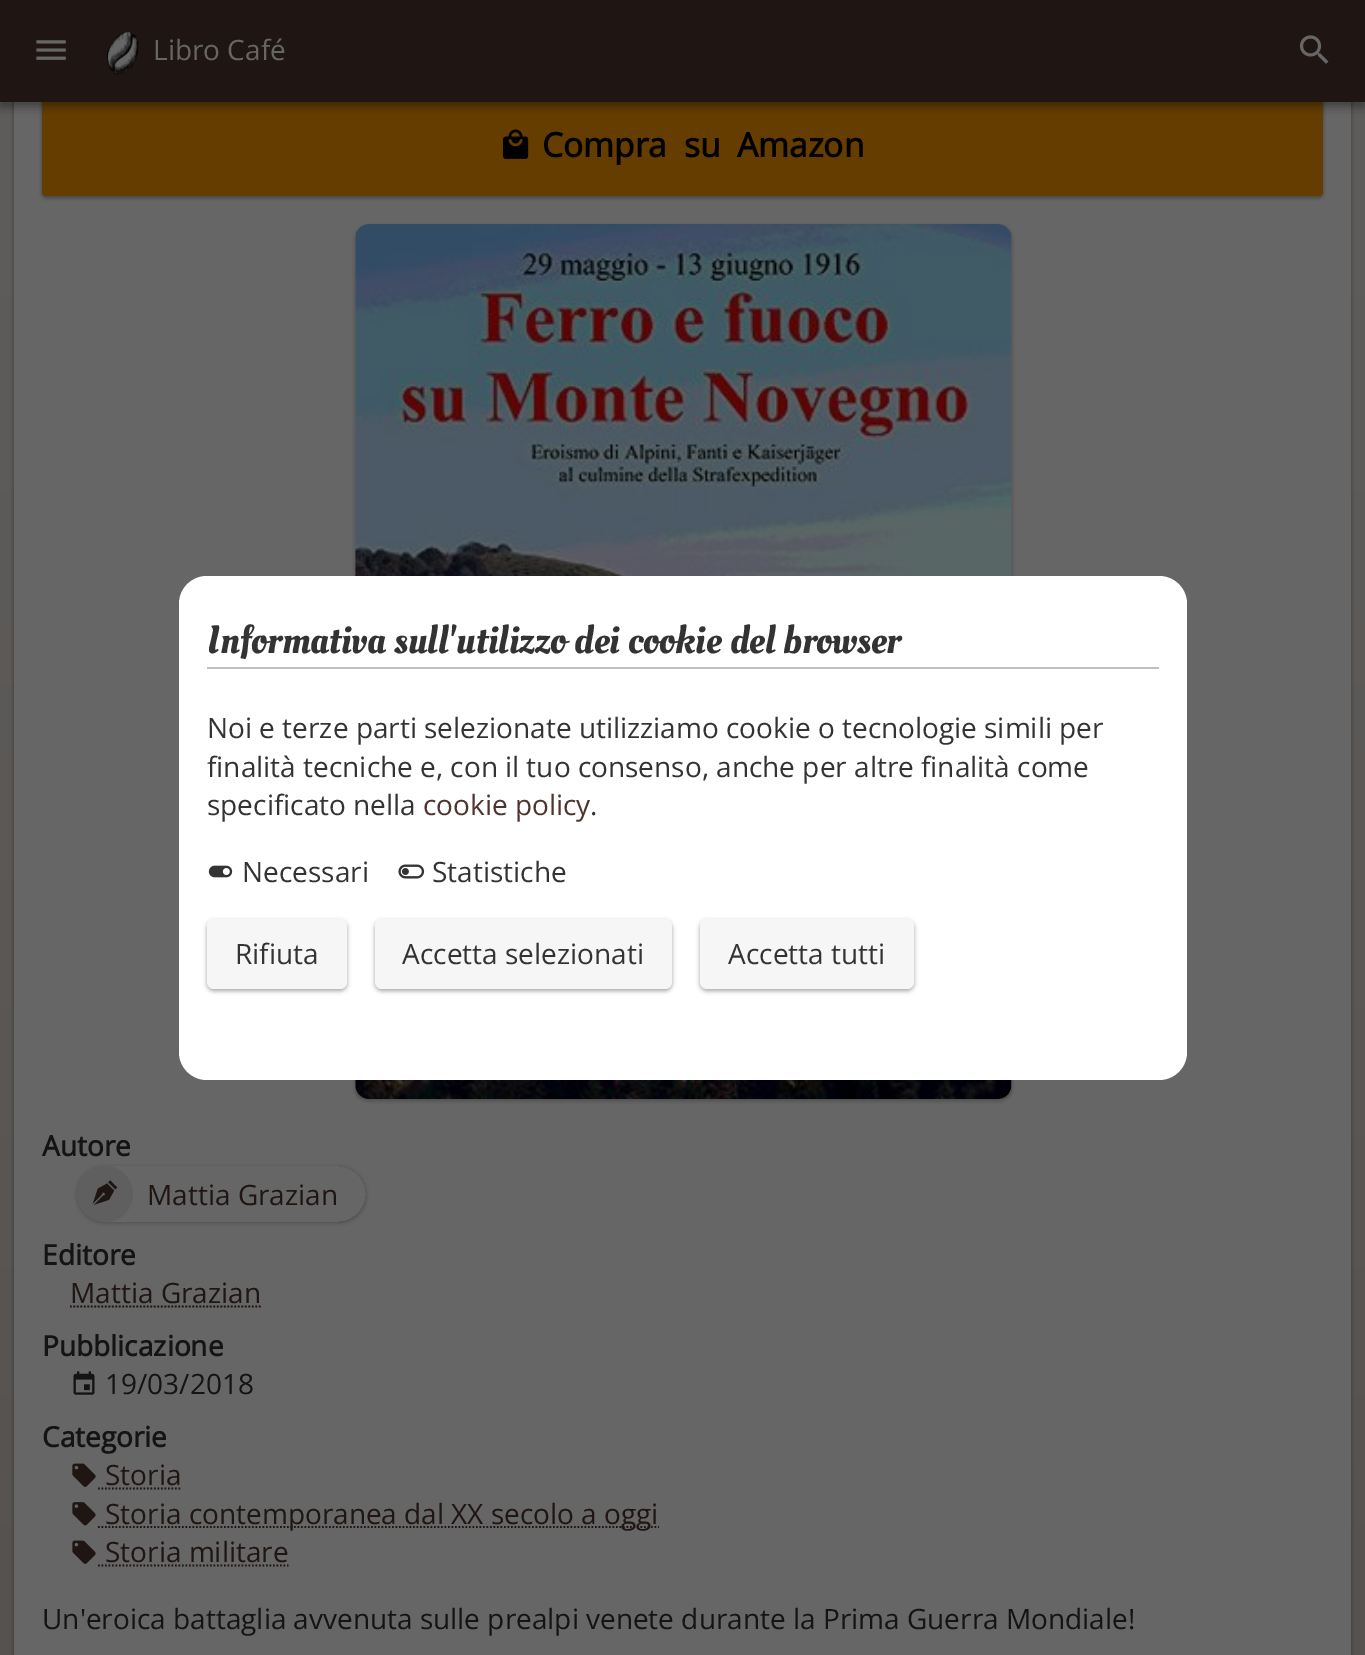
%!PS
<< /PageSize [1365 1655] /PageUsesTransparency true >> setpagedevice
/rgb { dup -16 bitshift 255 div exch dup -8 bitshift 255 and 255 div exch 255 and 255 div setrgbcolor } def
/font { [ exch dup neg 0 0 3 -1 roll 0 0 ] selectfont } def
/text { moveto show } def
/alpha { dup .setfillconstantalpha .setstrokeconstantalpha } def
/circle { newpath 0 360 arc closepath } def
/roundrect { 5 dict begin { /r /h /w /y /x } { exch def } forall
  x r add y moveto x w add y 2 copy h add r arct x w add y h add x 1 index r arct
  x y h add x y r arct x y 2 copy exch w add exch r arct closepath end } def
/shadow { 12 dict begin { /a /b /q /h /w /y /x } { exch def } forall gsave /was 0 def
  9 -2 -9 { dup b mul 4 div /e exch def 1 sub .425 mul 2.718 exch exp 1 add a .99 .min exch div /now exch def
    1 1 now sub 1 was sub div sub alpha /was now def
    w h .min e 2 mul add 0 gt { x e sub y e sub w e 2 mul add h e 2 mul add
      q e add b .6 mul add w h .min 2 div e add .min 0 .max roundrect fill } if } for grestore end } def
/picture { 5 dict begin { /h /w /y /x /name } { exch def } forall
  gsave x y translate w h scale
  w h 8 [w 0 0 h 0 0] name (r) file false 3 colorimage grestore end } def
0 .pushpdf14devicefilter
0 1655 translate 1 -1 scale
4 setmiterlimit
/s1 { /OpenSans-Regular 28 font 16#666666 rgb } def
/s2 { /OpenSans-Bold 28 font 16#141414 rgb } def
/s3 { /OpenSans-Regular 28 font 16#1F1512 rgb } def
/s4 { /OpenSans-Regular 28 font 16#141414 rgb } def
/s5 { /OleoScript-Regular 39.25 font 16#333333 rgb } def
/s6 { /OpenSans-Regular 28 font 16#333333 rgb } def
/s7 { /OpenSans-Regular 28 font 16#4E342E rgb } def
16#FFFFFF rgb
0 0 1365 1655 rectfill
gsave 0 102 moveto 1365 102 lineto 1365 1655 lineto 0 1655 lineto closepath clip newpath
<< /ShadingType 2 /ColorSpace /DeviceRGB /Coords [683 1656 683 0] /Extend [true true] /Function << /FunctionType 2 /Domain [0 1] /C0 [0.337 0.322 0.314] /C1 [0.376 0.369 0.365] /N 1 >> >> shfill grestore
16#000000 rgb
14 -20 1337 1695 14 2 0.24 shadow
14 -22 1337 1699 14 2.5 0.12 shadow
16#666666 rgb
14 102 1337 1553 rectfill
16#000000 rgb
42 95 1281 103 4 2 0.24 shadow
42 95 1281 103 4 2.5 0.12 shadow
16#663D00 rgb
42 93 1281 103 4 roundrect fill
16#1F1512 rgb
0 0 1365 102 rectfill
gsave
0 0 moveto 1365 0 lineto 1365 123 lineto 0 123 lineto closepath 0 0 moveto 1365 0 lineto 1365 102 lineto 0 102 lineto closepath eoclip newpath
16#000000 rgb
0 5 1365 102 0 5 0.23 shadow
0 5 1365 102 0 5 0.16 shadow
grestore
(pic1.raw) 36 40 30 20 picture
(pic2.raw) 106 30 33 45 picture
s1
(Libro Café) 153 60 text
(pic3.raw) 1299 35 30 29 picture
(pic4.raw) 502 129 27 30 picture
/OpenSans-Bold 33.5 font
16#000000 rgb
542 157 moveto 8 0 32 (Compra su Amazon) widthshow
355 226 657 875 14 2 0.24 shadow
(pic5.raw) 355 224 657 875 picture
s2
(Autore) 42 1156 text
gsave
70 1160 moveto 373 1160 lineto 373 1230 lineto 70 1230 lineto closepath 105 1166 moveto 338 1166 lineto 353.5 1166 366 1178.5 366 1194 curveto 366 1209.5 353.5 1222 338 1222 curveto 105 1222 lineto 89.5 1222 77 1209.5 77 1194 curveto 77 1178.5 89.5 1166 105 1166 curveto closepath eoclip newpath
16#000000 rgb
77 1167 289 56 28 2 0.24 shadow
grestore
16#5F5F5F rgb
105 1194 28 circle fill
(pic6.raw) 92 1180 26 25 picture
s3
(Mattia Grazian) 147 1205 text
s2
(Editore) 42 1265 text
s3
(Mattia Grazian) 70 1303 text
1.8 setlinewidth
[1.75 1.75] 0 setdash
70 1306.5 moveto 261 1306.5 lineto stroke
s2
(Pubblicazione) 42 1356 text
(pic7.raw) 73 1371 22 24 picture
s4
(19/03/2018) 105 1394 text
s2
(Categorie) 42 1447 text
(pic8.raw) 72 1463 24 24 picture
s3
(Storia) 105 1485 text
98 1488.5 moveto 181.5 1488.5 lineto stroke
(pic9.raw) 72 1502 24 24 picture
98 1527 moveto 659 1527 lineto stroke
(Storia contemporanea dal XX secolo a oggi) 105 1524 text
(pic8.raw) 72 1540 24 24 picture
(Storia militare) 105 1562 text
98 1565.5 moveto 288.5 1565.5 lineto stroke
s4
(Un'eroica battaglia avvenuta sulle prealpi venete durante la Prima Guerra Mondiale!) 42 1629 text
16#FFFFFF rgb
179 576 1008 504 28 roundrect fill
16#C0C0C0 rgb
207 667 952 2 rectfill
s5
(Informativa sull'utilizzo dei cookie del browser) 207 653 text
s6
(Noi e terze parti selezionate utilizziamo cookie o tecnologie simili per) 207 738 text
(finalità tecniche e, con il tuo consenso, anche per altre finalità come) 207 777 text
(specificato nella) 207 815 text
s7
(cookie policy) 423 815 text
s6
(.) 590 815 text
(pic10.raw) 208 865 25 13 picture
(Necessari) 242 882 text
(pic11.raw) 398 864 27 15 picture
(Statistiche) 432 882 text
16#000000 rgb
207 921 140 70 7 2 0.24 shadow
207 921 140 70 7 2.5 0.12 shadow
16#F6F6F6 rgb
207 919 140 70 7 roundrect fill
s6
(Rifiuta) 235 964 text
16#000000 rgb
375 921 297 70 7 2 0.24 shadow
375 921 297 70 7 2.5 0.12 shadow
16#F6F6F6 rgb
375 919 297 70 7 roundrect fill
s6
(Accetta selezionati) 402 964 text
16#000000 rgb
700 921 214 70 7 2 0.24 shadow
700 921 214 70 7 2.5 0.12 shadow
16#F6F6F6 rgb
700 919 214 70 7 roundrect fill
s6
(Accetta tutti) 728 964 text
.poppdf14devicefilter showpage
